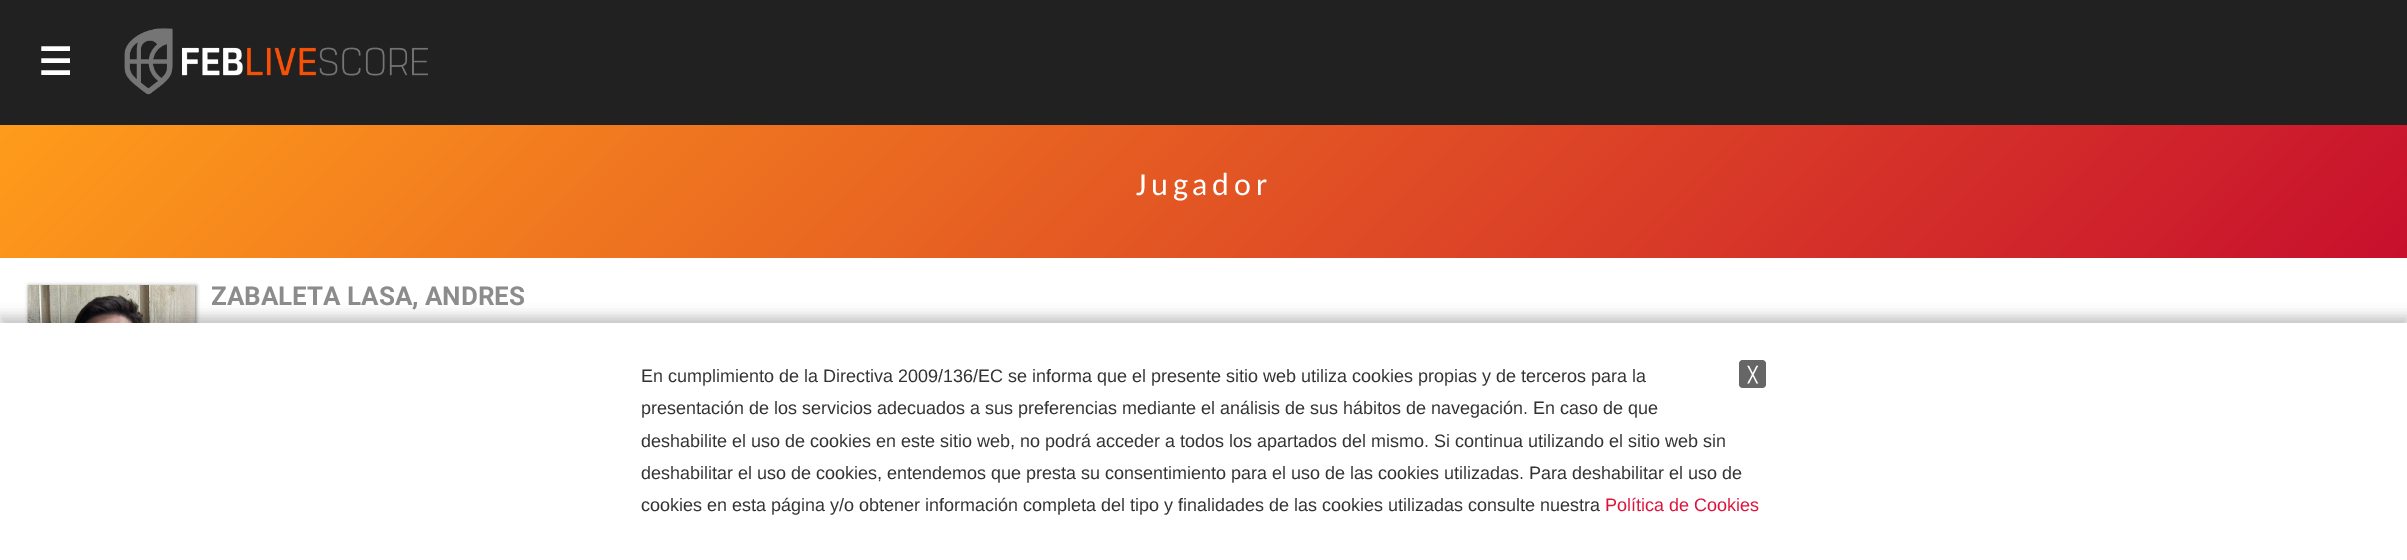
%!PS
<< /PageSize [2407 560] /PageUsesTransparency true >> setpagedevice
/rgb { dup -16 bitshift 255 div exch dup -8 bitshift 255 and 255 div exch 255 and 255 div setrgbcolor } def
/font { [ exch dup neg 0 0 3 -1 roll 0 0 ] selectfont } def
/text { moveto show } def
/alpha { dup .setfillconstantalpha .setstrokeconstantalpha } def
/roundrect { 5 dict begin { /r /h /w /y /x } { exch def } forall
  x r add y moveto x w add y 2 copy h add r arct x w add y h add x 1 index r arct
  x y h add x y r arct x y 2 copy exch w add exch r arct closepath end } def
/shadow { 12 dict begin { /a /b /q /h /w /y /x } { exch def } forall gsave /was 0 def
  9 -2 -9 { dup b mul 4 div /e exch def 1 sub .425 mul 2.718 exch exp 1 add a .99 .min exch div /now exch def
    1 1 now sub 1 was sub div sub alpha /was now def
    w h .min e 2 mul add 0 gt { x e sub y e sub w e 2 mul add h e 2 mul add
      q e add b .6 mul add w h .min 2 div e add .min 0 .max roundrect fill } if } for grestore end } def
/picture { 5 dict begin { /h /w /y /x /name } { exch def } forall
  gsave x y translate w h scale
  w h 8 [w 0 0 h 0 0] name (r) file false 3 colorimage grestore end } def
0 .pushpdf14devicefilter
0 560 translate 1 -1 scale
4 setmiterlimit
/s1 { /DejaVuSans-Bold 38 font 16#FFFFFF rgb } def
/s2 { /Roboto-Bold 26 font 16#8C8C8C rgb } def
/s3 { /LiberationSans-Regular 18 font 16#333333 rgb } def
/s4 { /DejaVuSans-Bold 15 font 16#FFFFFF rgb } def
/s5 { /LiberationSans-Regular 18 font 16#DC143C rgb } def
16#212121 rgb
0 0 2407 560 rectfill
s1
(☰) 38 75 text
(pic1.raw) 124 28 304 67 picture
0 258 2407 65 rectfill
gsave 0 125 moveto 2407 125 lineto 2407 258 lineto 0 258 lineto closepath clip newpath
<< /ShadingType 2 /ColorSpace /DeviceRGB /Coords [569 -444 1839 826] /Extend [true true] /Function << /FunctionType 2 /Domain [0 1] /C0 [1 0.612 0.106] /C1 [0.784 0.063 0.18] /N 1 >> >> shfill grestore
/Carlito-Regular 32 font
1136 195 moveto 4.75 0 (Jugador) ashow
16#000000 rgb
29 286 167 250 0 2 0.5 shadow
(pic2.raw) 27 285 168 38 picture
s2
(ZABALETA LASA, ANDRES) 211 305 text
16#000000 rgb
0 316 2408 238 0 6 0.22 shadow
16#FFFFFF rgb
0 323 2407 237 rectfill
s3
(En cumplimiento de la Directiva 2009/136/EC se informa que el presente sitio web utiliza cookies propias y de terceros para la) 641 382 text
16#666666 rgb
1739 360 27 28 4 roundrect fill
s4
(╳) 1748 380 text
s3
(presentación de los servicios adecuados a sus preferencias mediante el análisis de sus hábitos de navegación. En caso de que) 641 414 text
(deshabilite el uso de cookies en este sitio web, no podrá acceder a todos los apartados del mismo. Si continua utilizando el sitio web sin) 641 447 text
(deshabilitar el uso de cookies, entendemos que presta su consentimiento para el uso de las cookies utilizadas. Para deshabilitar el uso de) 641 479 text
(cookies en esta página y/o obtener información completa del tipo y finalidades de las cookies utilizadas consulte nuestra) 641 511 text
s5
(Política de Cookies) 1605 511 text
.poppdf14devicefilter showpage
